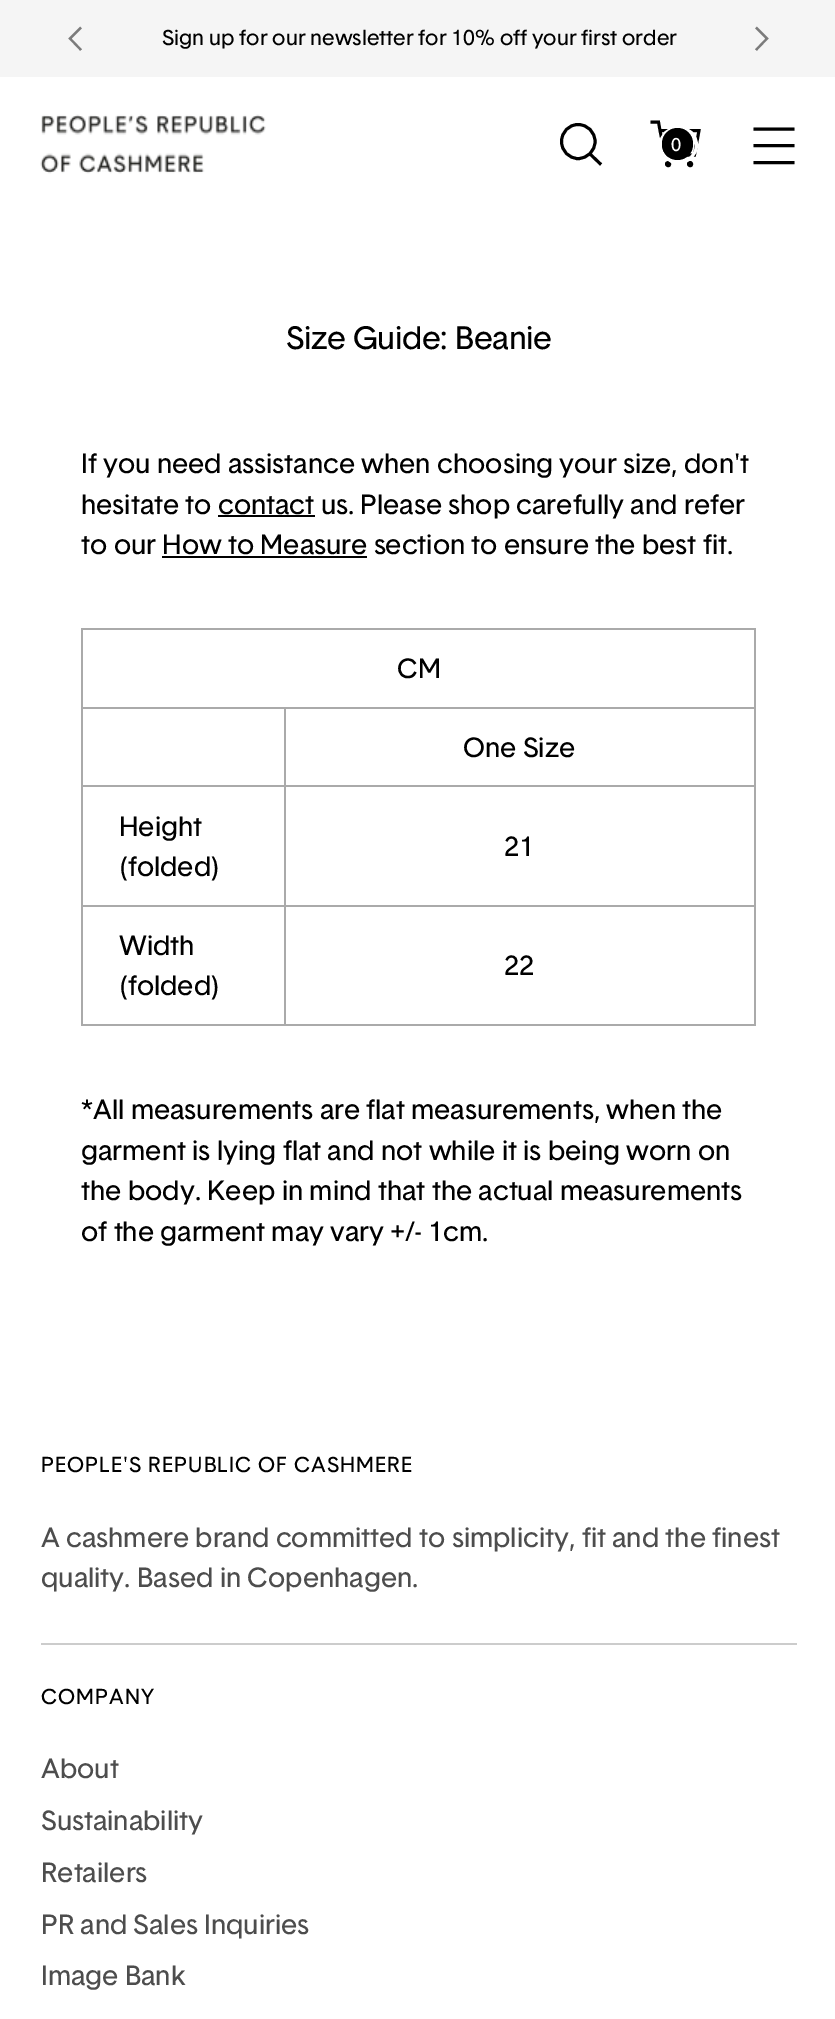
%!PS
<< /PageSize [835 2019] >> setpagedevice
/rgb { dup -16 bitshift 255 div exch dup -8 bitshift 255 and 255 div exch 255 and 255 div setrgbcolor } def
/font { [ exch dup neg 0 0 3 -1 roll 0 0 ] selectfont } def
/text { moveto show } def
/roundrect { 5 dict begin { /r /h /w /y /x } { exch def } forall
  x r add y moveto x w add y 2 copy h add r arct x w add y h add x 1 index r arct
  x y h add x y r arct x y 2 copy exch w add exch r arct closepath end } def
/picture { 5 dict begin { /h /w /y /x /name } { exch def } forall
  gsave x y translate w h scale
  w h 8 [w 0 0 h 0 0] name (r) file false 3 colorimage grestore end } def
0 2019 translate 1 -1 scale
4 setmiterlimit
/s1 { /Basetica-Regular 21 font 16#000000 rgb } def
/s2 { /Basetica-Regular 18 font 16#FFFFFF rgb } def
/s3 { /Basetica-Regular 27 font 16#000000 rgb } def
/s4 { /Basetica-Regular 27 font 16#4D4D4D rgb } def
16#FFFFFF rgb
0 0 835 2019 rectfill
16#F5F5F5 rgb
0 0 835 77 rectfill
16#7B7B7B rgb
2.2 setlinewidth
81 27.5 moveto 70 38.5 lineto 81 50 lineto stroke
756 50 moveto 767 38.5 lineto 756 27.5 lineto stroke
s1
(Sign up for our newsletter for 10% off your first order) 162 45 text
(pic1.raw) 40 114 226 60 picture
2.9 setlinewidth
1 setlinecap
578 158.5 moveto 587.5 158.5 595 151 595 141.5 curveto 595 132 587.5 124.5 578 124.5 curveto 569 124.5 561.5 132 561.5 141.5 curveto 561.5 151 569 158.5 578 158.5 curveto closepath stroke
0 setlinecap
590 154 moveto 601 164.5 lineto stroke
660 130.5 moveto 699 130.5 lineto 694.5 155 lineto 665 155 lineto closepath 660 130.5 moveto 658.5 122 lineto 650.5 122 lineto stroke
1 setlinecap
2 setlinejoin
667 163 moveto 669 161.5 670.5 164 669 165.5 curveto 667.5 166.5 665.5 164 667 163 curveto closepath 689 163 moveto 691 161.5 692.5 164 691 165.5 curveto 689.5 166.5 687.5 164 689 163 curveto closepath stroke
16#FFFFFF rgb
3 setlinewidth
0 setlinecap
0 setlinejoin
660.5 127.5 36 35 17.5 roundrect stroke
16#000000 rgb
662 128 31 32 15.5 roundrect fill
s2
(0) 671 151 text
16#000000 rgb
2.9 setlinewidth
753.5 145.5 moveto 794.5 145.5 lineto 753.5 129 moveto 794.5 129 lineto 753.5 162.5 moveto 794.5 162.5 lineto stroke
/Basetica-Regular 31.5 font
286 349 moveto -0.3 0 (Size Guide: Beanie) ashow
s3
(If you need assistance when choosing your size, don't) 81 473 text
(hesitate to contact us. Please shop carefully and refer) 81 514 text
218 515 97 2 rectfill
(to our How to Measure section to ensure the best fit.) 81 554 text
162 556 205 2 rectfill
16#AAAAAA rgb
81 628 675 2 rectfill
284 707 472 2 rectfill
284 785 472 2 rectfill
284 905 472 2 rectfill
754 905 2 121 rectfill
754 785 2 122 rectfill
754 707 2 81 rectfill
754 628 2 81 rectfill
284 1024 472 2 rectfill
284 905 2 121 rectfill
81 905 205 2 rectfill
284 785 2 122 rectfill
81 785 205 2 rectfill
284 707 2 81 rectfill
81 707 205 2 rectfill
81 1024 205 2 rectfill
81 905 2 121 rectfill
81 785 2 122 rectfill
81 707 2 81 rectfill
81 628 2 81 rectfill
s3
(CM) 397 678 text
(One Size) 463 757 text
(Height) 119 836 text
(\(folded\)) 119 876 text
(21) 504 856 text
(Width) 119 955 text
(\(folded\)) 119 995 text
(22) 504 975 text
(*All measurements are flat measurements, when the) 81 1119 text
(garment is lying flat and not while it is being worn on) 81 1160 text
(the body. Keep in mind that the actual measurements) 81 1200 text
(of the garment may vary +/- 1cm.) 81 1241 text
16#CCCCCC rgb
41 1643 756 2 rectfill
/Basetica-Regular 21 font
16#000000 rgb
41 1472 moveto 1.05 0 (PEOPLE'S REPUBLIC OF CASHMERE) ashow
s4
(A cashmere brand committed to simplicity, fit and the finest) 41 1547 text
(quality. Based in Copenhagen.) 41 1587 text
/Basetica-Regular 21 font
16#000000 rgb
41 1704 moveto 1.05 0 (COMPANY) ashow
s4
(About) 41 1778 text
(Sustainability) 41 1830 text
(Retailers) 41 1882 text
(PR and Sales Inquiries) 41 1934 text
(Image Bank) 41 1985 text
showpage
